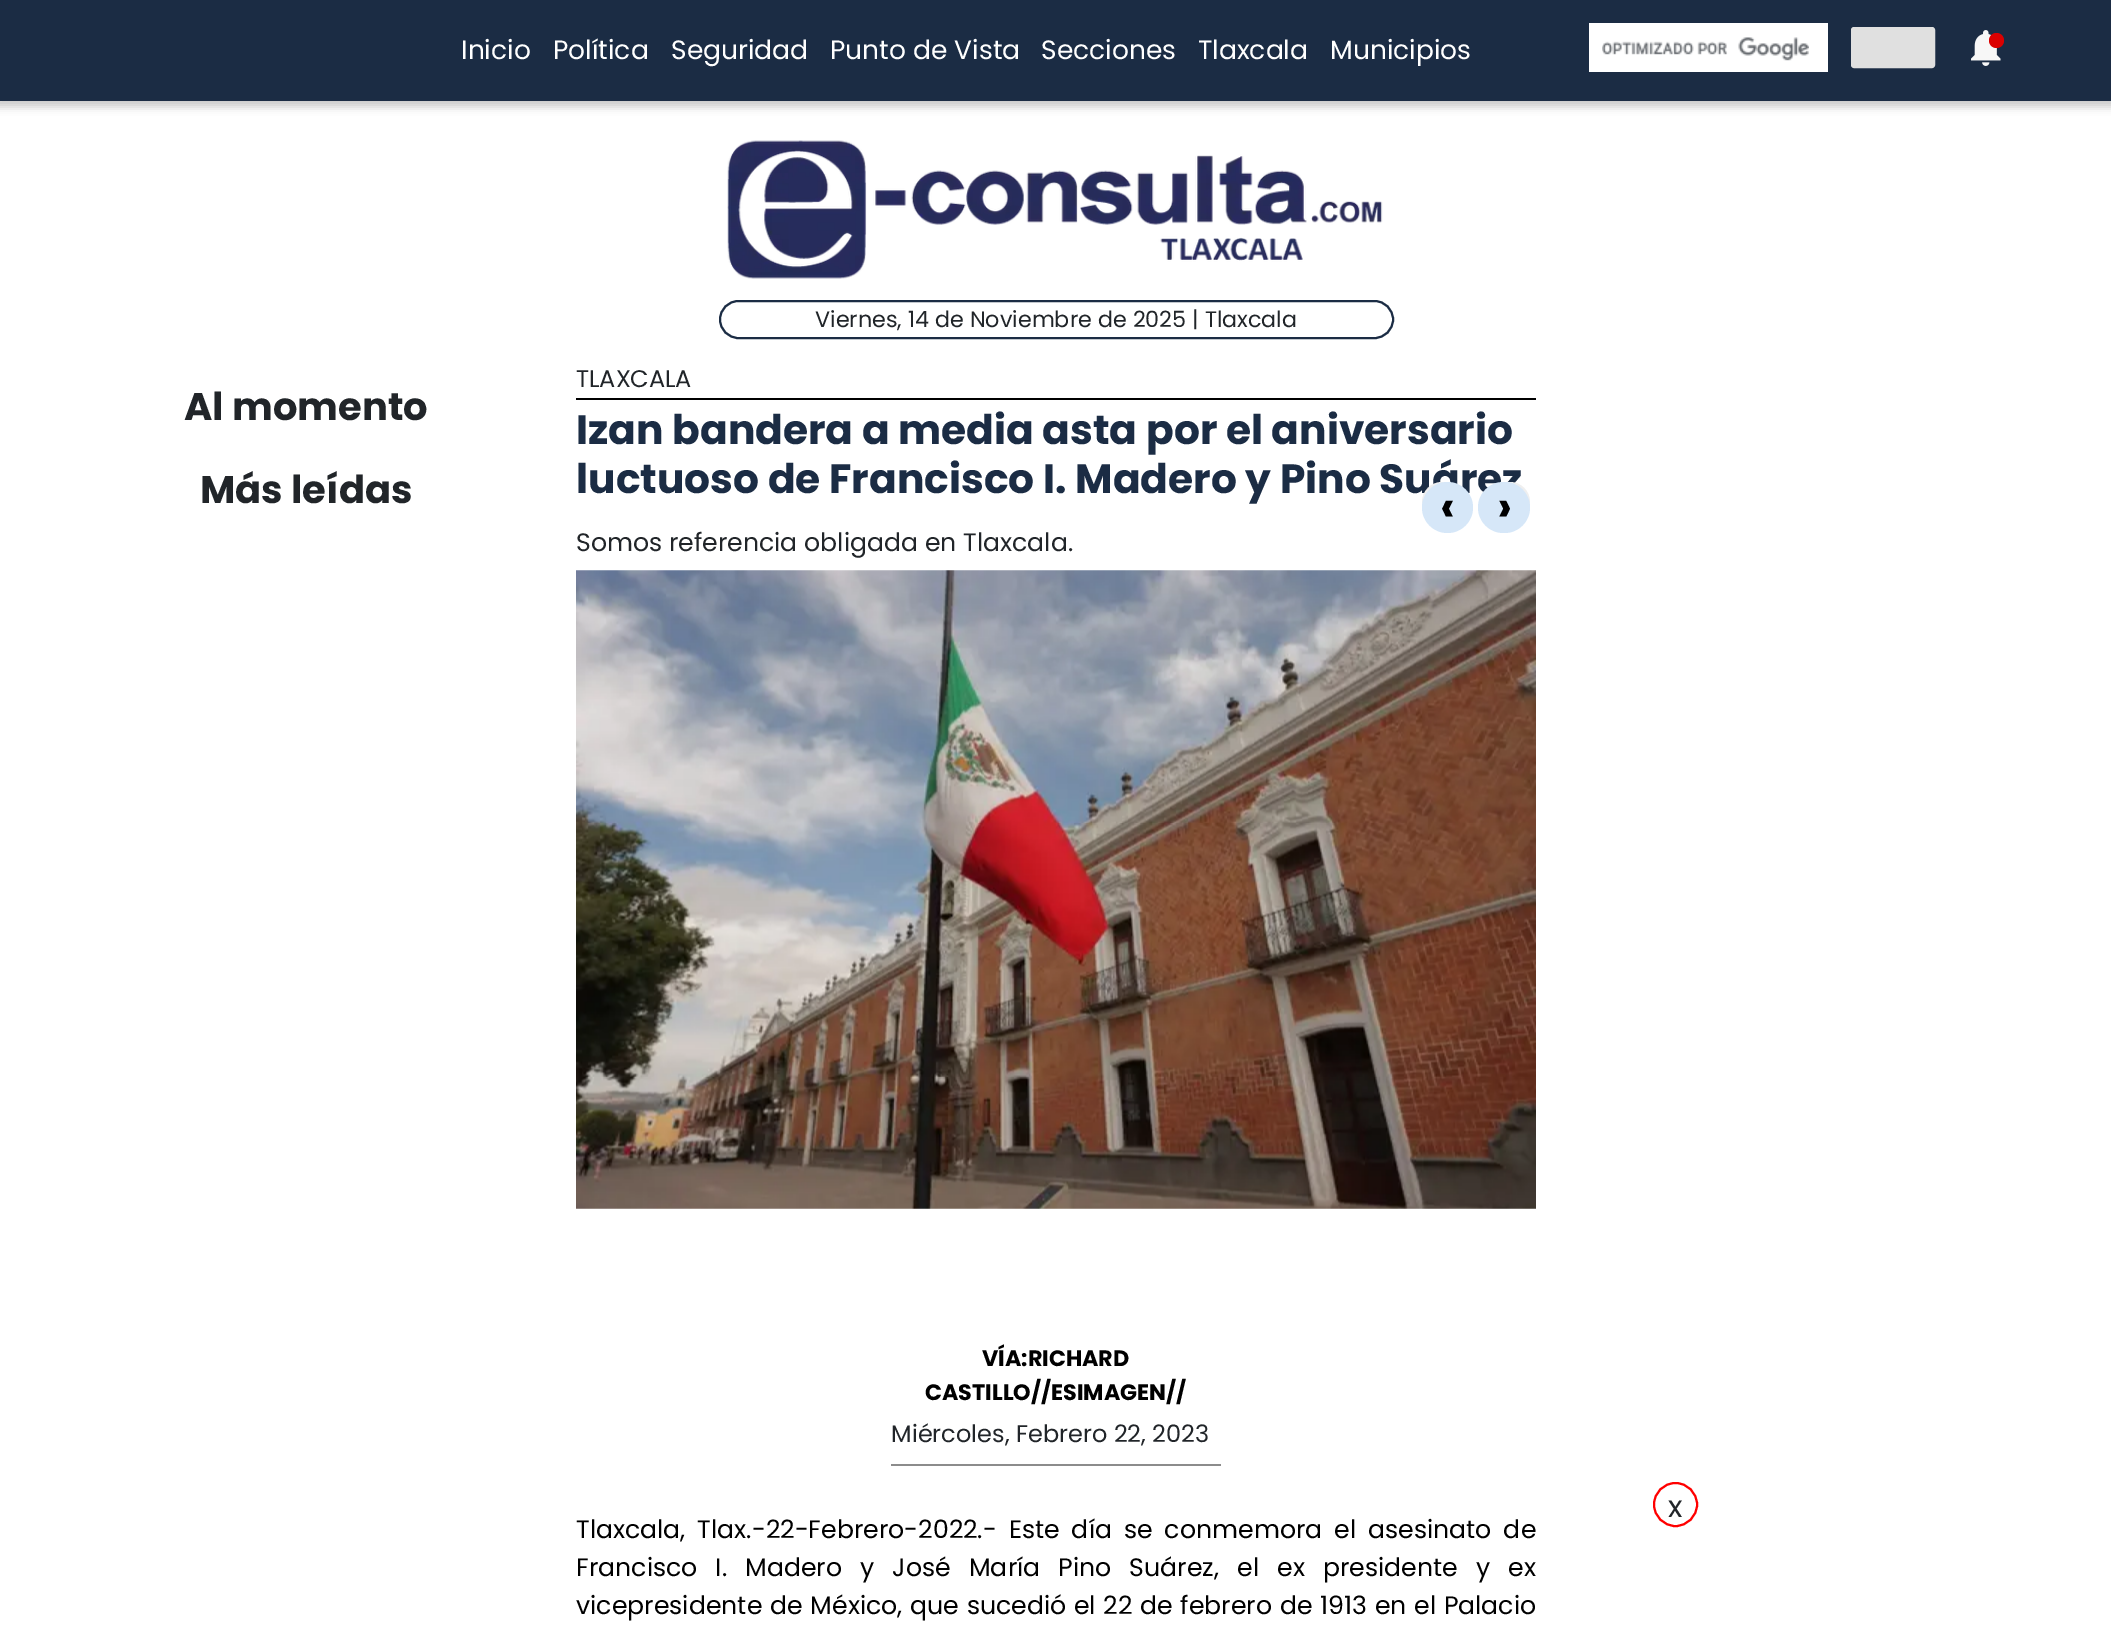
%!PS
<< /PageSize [2111 1646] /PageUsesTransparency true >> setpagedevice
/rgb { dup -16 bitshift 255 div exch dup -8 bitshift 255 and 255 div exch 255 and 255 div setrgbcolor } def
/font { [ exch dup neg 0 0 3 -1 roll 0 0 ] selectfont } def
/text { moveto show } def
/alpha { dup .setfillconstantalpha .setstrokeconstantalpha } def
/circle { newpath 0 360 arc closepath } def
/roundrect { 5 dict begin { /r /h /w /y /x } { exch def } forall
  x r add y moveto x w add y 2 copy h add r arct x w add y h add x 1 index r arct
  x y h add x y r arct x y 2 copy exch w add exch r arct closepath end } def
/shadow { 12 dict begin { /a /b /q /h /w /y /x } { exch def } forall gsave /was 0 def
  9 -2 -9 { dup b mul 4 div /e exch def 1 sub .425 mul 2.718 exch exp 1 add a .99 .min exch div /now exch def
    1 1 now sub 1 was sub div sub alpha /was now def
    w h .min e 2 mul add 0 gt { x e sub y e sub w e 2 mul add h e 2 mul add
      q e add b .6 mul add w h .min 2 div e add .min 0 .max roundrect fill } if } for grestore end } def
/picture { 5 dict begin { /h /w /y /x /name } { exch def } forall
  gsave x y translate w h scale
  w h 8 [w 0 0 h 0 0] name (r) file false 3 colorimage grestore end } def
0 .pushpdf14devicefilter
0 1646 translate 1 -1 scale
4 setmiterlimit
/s1 { /Poppins-Regular 26.5 font 16#FFFFFF rgb } def
/s2 { /Poppins-Regular 22.3 font 16#212529 rgb } def
/s3 { /Poppins-Bold 38.5 font 16#212529 rgb } def
/s4 { /Poppins-Regular 24 font 16#212529 rgb } def
/s5 { /Poppins-Bold 40.8 font 16#1B2C44 rgb } def
/s6 { /Poppins-Bold 45 font 16#000000 rgb } def
/s7 { /Poppins-Regular 25.2 font 16#212529 rgb } def
/s8 { /Poppins-Bold 22.3 font 16#000000 rgb } def
/s9 { /Poppins-Regular 30 font 16#212529 rgb } def
16#FFFFFF rgb
0 0 2111 1646 rectfill
16#000000 rgb
-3 0 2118 107 0 4 0.2 shadow
16#1B2C44 rgb
0 0 2111 101 rectfill
s1
(Inicio) 461 59 text
(Política) 553 59 text
(Seguridad) 671 59 text
(Punto de Vista) 830 59 text
(Secciones) 1041 59 text
(Tlaxcala) 1198 59 text
(Municipios) 1330 59 text
1589 23 239 49 rectfill
(pic1.raw) 1602 37 207 24 picture
16#E0E0E0 rgb
1852 28 82 39 2 roundrect gsave fill grestore
2 setlinewidth
stroke
(pic2.raw) 1971 30 30 36 picture
16#DB0000 rgb
1996.5 40.5 7.5 circle fill
(pic3.raw) 727 140 656 139 picture
16#1B2C44 rgb
720 301 673 37 18.5 roundrect stroke
s2
(Viernes, 14 de Noviembre de 2025 | Tlaxcala) 815 327 text
s3
(Al momento) 184 420 text
(Más leídas) 200 503 text
16#000000 rgb
576 398 960 2 rectfill
s4
(TLAXCALA) 576 387 text
s5
(Izan bandera a media asta por el aniversario) 576 444 text
(luctuoso de Francisco I. Madero y Pino Suárez) 576 493 text
16#EFEFEF rgb
1422 482 41 40 20 roundrect fill
16#D6E7F8 rgb
1447.5 507.5 25.5 circle fill
s6
(‹) 1440 522 text
16#EFEFEF rgb
1510 502 20 circle fill
16#D6E7F8 rgb
1478 482 52 51 25.5 roundrect fill
s6
(›) 1497 522 text
(pic4.raw) 576 570 960 639 picture
s7
(Somos referencia obligada en Tlaxcala.) 576 551 text
16#8C8C8C rgb
891 1464 330 2 rectfill
s8
(VÍA:RICHARD) 982 1366 text
(CASTILLO//ESIMAGEN//) 925 1400 text
s4
(Miércoles, Febrero 22, 2023) 891 1442 text
/Poppins-Regular 25.2 font
16#000000 rgb
576 1538 moveto 5.25 0 32 (Tlaxcala, Tlax.-22-Febrero-2022.- Este día se conmemora el asesinato de) widthshow
576 1576 moveto 11.4 0 32 (Francisco I. Madero y José María Pino Suárez, el ex presidente y ex) widthshow
576 1614 moveto 1 0 32 (vicepresidente de México, que sucedió el 22 de febrero de 1913 en el Palacio) widthshow
16#FF0000 rgb
1675.5 1504.5 21.5 circle stroke
s9
(x) 1668 1517 text
.poppdf14devicefilter showpage
